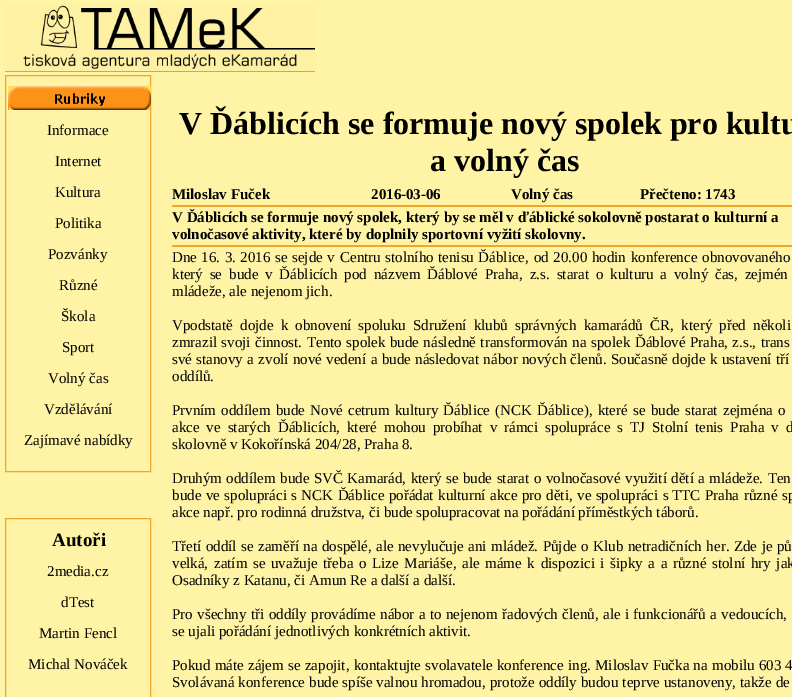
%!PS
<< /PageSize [792 697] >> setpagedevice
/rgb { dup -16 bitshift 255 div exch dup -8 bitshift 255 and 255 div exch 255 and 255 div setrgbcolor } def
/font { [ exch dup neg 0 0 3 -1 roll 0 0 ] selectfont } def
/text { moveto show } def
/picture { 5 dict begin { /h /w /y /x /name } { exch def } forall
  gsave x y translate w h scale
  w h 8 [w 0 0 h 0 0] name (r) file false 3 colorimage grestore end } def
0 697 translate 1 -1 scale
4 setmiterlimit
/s1 { /LiberationSerif-Regular 15 font 16#000000 rgb } def
/s2 { /LiberationSerif-Bold 19 font 16#000000 rgb } def
/s3 { /LiberationSerif-Bold 32 font 16#000000 rgb } def
/s4 { /LiberationSerif-Bold 15 font 16#000000 rgb } def
16#FFF3A5 rgb
0 0 792 697 rectfill
(pic1.raw) 5 5 310 67 picture
16#F1A629 rgb
5.5 75.5 145 396 rectstroke
(pic2.raw) 8 86 143 24 picture
s1
(Informace) 47 135 text
(Internet) 55 166 text
(Kultura) 55 197 text
(Politika) 55 228 text
(Pozvánky) 48 259 text
(Různé) 59 290 text
(Škola) 61 321 text
(Sport) 62 352 text
(Volný čas) 48 383 text
(Vzdělávání) 44 414 text
(Zajímavé nabídky) 24 445 text
16#F1A629 rgb
5.5 518.5 145 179 rectstroke
s2
(Autoři) 52 546 text
s1
(2media.cz) 47 576 text
(dTest) 61 607 text
(Martin Fencl) 39 638 text
(Michal Nováček) 28 669 text
s3
(V Ďáblicích se formuje nový spolek pro kultu) 179 134 text
(a volný čas) 430 171 text
s4
(Miloslav Fuček) 172 199 text
(2016-03-06) 371 199 text
(Volný čas) 511 199 text
(Přečteno: 1743) 640 199 text
16#F1A629 rgb
172 205 620 2 rectfill
s4
(V Ďáblicích se formuje nový spolek, který by se měl v ďáblické sokolovně postarat o kulturní a) 172 222 text
(volnočasové aktivity, které by doplnily sportovní vyžití skolovny.) 172 239 text
16#F1A629 rgb
172 245 620 2 rectfill
/LiberationSerif-Regular 15 font
16#000000 rgb
172 262 moveto 0.75 0 32 (Dne 16. 3. 2016 se sejde v) widthshow
340 262 moveto 0.75 0 32 (Centru stolního tenisu Ďáblice) widthshow
525 262 moveto 1 0 32 (, od 20.00 hodin konference obnovovaného) widthshow
172 279 moveto 3.1 0 32 (který se bude v Ďáblicích pod názvem Ďáblové Praha, z.s. starat o kulturu a volný čas, zejmén) widthshow
(mládeže, ale nejenom jich.) 172 296 text
172 330 moveto 3.5 0 32 (Vpodstatě dojde k obnovení spoluku) widthshow
413 330 moveto 3.5 0 32 (Sdružení klubů správných kamarádů ČR, který před několi) widthshow
172 347 moveto 0.75 0 32 (zmrazil svoji činnost. Tento spolek bude následně transformován na spolek Ďáblové Praha, z.s., trans) widthshow
172 364 moveto 0.6 0 32 (své stanovy a zvolí nové vedení a bude následovat nábor nových členů. Současně dojde k ustavení tří) widthshow
(oddílů.) 172 381 text
172 415 moveto 1.5 0 32 (Prvním oddílem bude Nové cetrum kultury Ďáblice \(NCK Ďáblice\), které se bude starat zejména o) widthshow
172 432 moveto 3.25 0 32 (akce ve starých Ďáblicích, které mohou probíhat v rámci spolupráce s TJ Stolní tenis Praha v ď) widthshow
(skolovně v Kokořínská 204/28, Praha 8.) 172 449 text
172 483 moveto 0.75 0 32 (Druhým oddílem bude SVČ Kamarád, který se bude starat o volnočasové využití dětí a mládeže. Ten) widthshow
172 500 moveto 0.7 0 32 (bude ve spolupráci s NCK Ďáblice pořádat kulturní akce pro děti, ve spolupráci s) widthshow
672 500 moveto 0.7 0 32 (TTC Praha) widthshow
744 500 moveto 0.7 0 32 (různé sp) widthshow
(akce např. pro rodinná družstva, či bude spolupracovat na pořádání příměstkých táborů.) 172 517 text
172 551 moveto 0.75 0 32 (Třetí oddíl se zaměří na dospělé, ale nevylučuje ani mládež. Půjde o Klub netradičních her. Zde je pů) widthshow
172 568 moveto 1.9 0 32 (velká, zatím se uvažuje třeba o Lize Mariáše, ale máme k dispozici i šipky a a různé stolní hry jak) widthshow
(Osadníky z Katanu, či Amun Re a další a další.) 172 585 text
172 619 moveto 0.7 0 32 (Pro všechny tři oddíly provádíme nábor a to nejenom řadových členů, ale i funkcionářů a vedoucích,) widthshow
(se ujali pořádání jednotlivých konkrétních aktivit.) 172 636 text
172 670 moveto 0.5 0 32 (Pokud máte zájem se zapojit, kontaktujte svolavatele konference ing. Miloslav Fučka na mobilu 603 4) widthshow
172 687 moveto 0.25 0 32 (Svolávaná konference bude spíše valnou hromadou, protože oddíly budou teprve ustanoveny, takže de) widthshow
showpage
